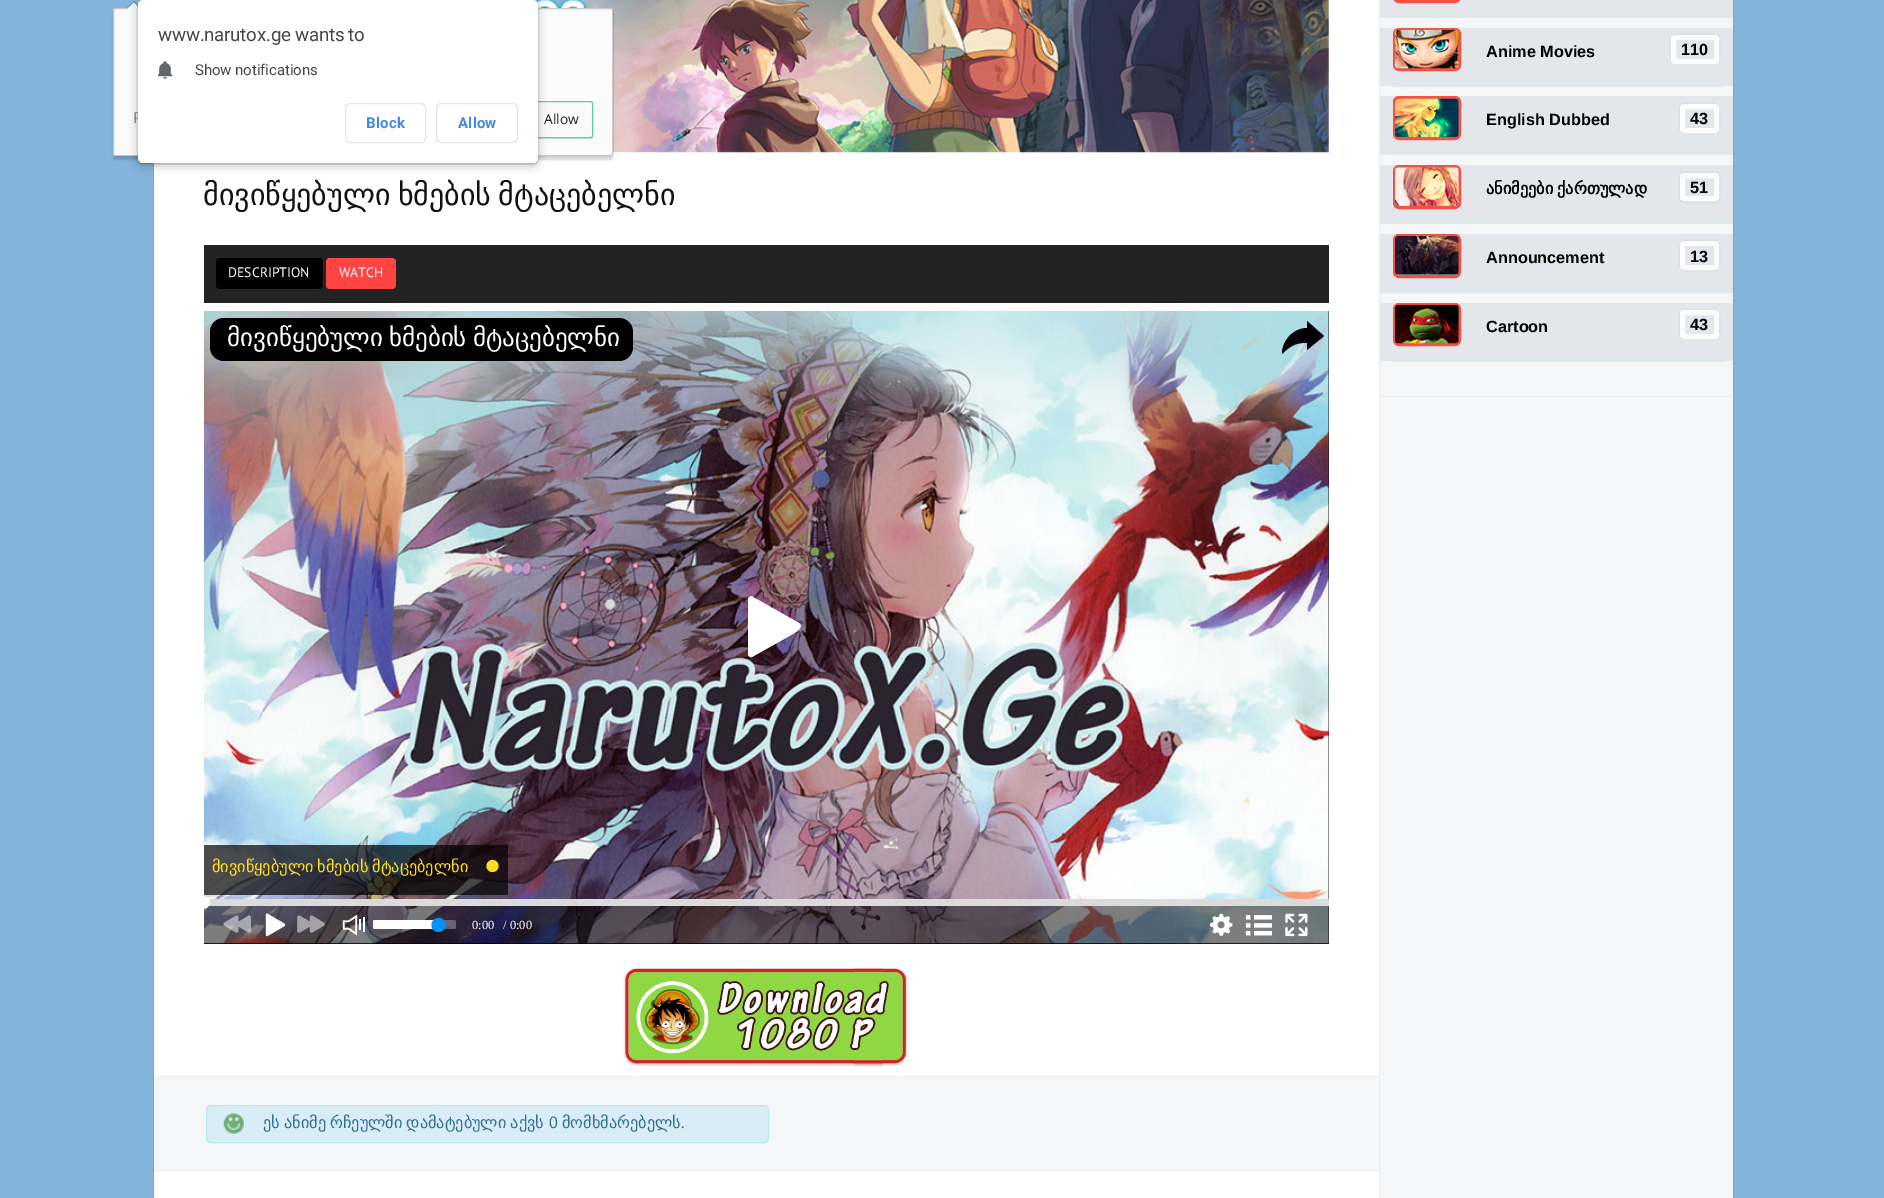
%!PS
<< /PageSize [1884 1198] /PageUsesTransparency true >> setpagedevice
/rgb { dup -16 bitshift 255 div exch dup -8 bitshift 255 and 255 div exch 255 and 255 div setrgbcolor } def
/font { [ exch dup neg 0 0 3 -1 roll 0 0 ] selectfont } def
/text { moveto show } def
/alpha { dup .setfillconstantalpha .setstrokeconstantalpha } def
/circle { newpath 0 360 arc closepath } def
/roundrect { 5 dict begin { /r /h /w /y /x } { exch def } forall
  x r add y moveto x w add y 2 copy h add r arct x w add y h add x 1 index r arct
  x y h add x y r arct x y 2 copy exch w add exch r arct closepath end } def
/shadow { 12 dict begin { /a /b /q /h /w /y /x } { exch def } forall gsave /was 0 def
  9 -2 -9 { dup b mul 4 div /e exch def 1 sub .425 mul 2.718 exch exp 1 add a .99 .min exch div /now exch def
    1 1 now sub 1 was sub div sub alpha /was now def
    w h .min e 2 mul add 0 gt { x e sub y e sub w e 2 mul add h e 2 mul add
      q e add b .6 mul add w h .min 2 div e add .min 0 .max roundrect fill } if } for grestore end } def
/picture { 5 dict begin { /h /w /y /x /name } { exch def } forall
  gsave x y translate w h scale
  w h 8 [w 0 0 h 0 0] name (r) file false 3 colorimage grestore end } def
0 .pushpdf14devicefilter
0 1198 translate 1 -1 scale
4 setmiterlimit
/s1 { /OpenSans-Regular 15 font 16#6E6E6E rgb } def
/s2 { /PTSans-Regular 13.75 font 16#FFFFFF rgb } def
/s3 { /LiberationSerif-Regular 12.5 font 16#FFFFFF rgb } def
/s4 { /PTSans-Regular 16.25 font 16#31708F rgb } def
/s5 { /DejaVuSans-Regular 16.25 font 16#31708F rgb } def
/s6 { /LiberationSans-Bold 16.25 font 16#000000 rgb } def
/s7 { /OpenSans-Regular 13.75 font 16#222222 rgb } def
16#84B4DC rgb
0 0 1884 1198 rectfill
16#000000 rgb
154 -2 1579 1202 0 0.5 0.3 shadow
16#FFFFFF rgb
154 0 1225 1198 rectfill
(pic2.raw) 533 0 796 153 picture
16#000000 rgb
113 11 500 149 2.5 1 0.15 shadow
16#FBFBFB rgb
113 8 500 148 2.5 roundrect fill
0.2 alpha
16#000000 rgb
113.5 8.5 499 147 2 roundrect stroke
0.25 alpha
141 9 moveto 126 9 lineto 134 1 lineto closepath fill
1 alpha
16#FBFBFB rgb
141 10 moveto 126 10 lineto 134 2.5 lineto closepath fill
16#265D86 rgb
530 103 63 36 2.5 0.5 0.18 shadow
16#F9F9F9 rgb
530.5 101.5 62 36 2 roundrect gsave fill grestore
16#57D1AD rgb
stroke
16#000000 rgb
135 0 405 168 8 4 0.15 shadow
138 1 400 163 5 1 0.3 shadow
s1
(P) 133 123 text
16#FFFFFF rgb
138 0 400 163 5 roundrect fill
/Roboto-Regular 18.75 font
16#434749 rgb
158 41 moveto -0.25 0 (www.narutox.ge wants to) ashow
(pic1.raw) 158 61 15 18 picture
/Roboto-Regular 15 font
195 75 moveto -0.1 0 (Show notifications) ashow
16#E4E4E4 rgb
345.5 103.5 80 39 4.5 roundrect stroke
/Roboto-Bold 15 font
16#4089E8 rgb
366 128 moveto 0.25 0 (Block) ashow
16#E4E4E4 rgb
436.5 103.5 81 39 4.5 roundrect stroke
16#4089E8 rgb
458 128 moveto 0.25 0 (Allow) ashow
/DejaVuSans-Regular 30 font
16#111111 rgb
203 205 moveto -2 0 32 (მივიწყებული ხმების მტაცებელნი) widthshow
16#232323 rgb
204 245 1125 58 rectfill
16#000000 rgb
216 258 107 31 4 roundrect fill
s2
(DESCRIPTION) 228 277 text
16#FE4543 rgb
326 258 70 31 4 roundrect fill
s2
(WATCH) 339 277 text
16#000000 rgb
204 311 1125 633 rectfill
(pic3.raw) 203 311 1126 633 picture
210 318 423 43 14 roundrect fill
/DejaVuSans-Regular 25 font
16#FFFFFF rgb
227 346 moveto -2 0 32 (მივიწყებული ხმების მტაცებელნი) widthshow
16#050005 rgb
1307 350 moveto 1307 343 lineto 1295 342 1288 348 1282 354 curveto 1282 340 1294 328 1307 328 curveto 1307 321 lineto 1324 336 lineto closepath fill
16#FFFFFF rgb
799 623 moveto 753 597 lineto 752 596 lineto 750 596 748 598 748 599 curveto 748 654 lineto 748 656 750 658 752 657 curveto 791 635 lineto 794 633 805 628 799 623 curveto closepath fill
0.7 alpha
16#000000 rgb
204 845 304 50 rectfill
/DejaVuSans-Regular 16.25 font
1 alpha
16#FFDD1F rgb
212 872 moveto -1 0 32 (მივიწყებული ხმების მტაცებელნი) widthshow
492.5 866 6 circle fill
16#DBDBDB rgb
204 899 1125 7 rectfill
0.5 alpha
16#000000 rgb
204 906 1125 38 rectfill
gsave
204 311 1125 633 rectclip
1 alpha
16#FFFFFF rgb
204 902.5 6 circle fill
grestore
1 alpha
(pic4.raw) 223 915 29 18 picture
(pic5.raw) 265 913 20 24 picture
(pic6.raw) 297 915 28 18 picture
(pic7.raw) 342 914 23 22 picture
0.3 alpha
16#FFFFFF rgb
373 920 83 9 2 roundrect fill
1 alpha
373 920 66 9 2 roundrect fill
16#0090FF rgb
438.5 925 7 circle fill
s3
(0:00) 472 929 text
(/ 0:00) 503 929 text
(pic8.raw) 1210 913 23 23 picture
(pic9.raw) 1245 915 27 21 picture
(pic10.raw) 1285 913 23 24 picture
(pic11.raw) 623 967 285 100 picture
16#F4F6F8 rgb
154 1077 1225 93 rectfill
16#EAECEE rgb
154 1076 1225 1 rectfill
154 1170 1225 1 rectfill
16#D9EDF7 rgb
206.5 1105.5 562 37 4.5 roundrect gsave fill grestore
16#BCE8F1 rgb
stroke
(pic12.raw) 223 1113 21 21 picture
/DejaVuSans-Regular 16.25 font
16#31708F rgb
263 1128 moveto -1 0 32 (ეს ანიმე რჩეულში დამატებული აქვს) widthshow
s4
(0) 549 1128 text
s5
(მომხმარებელს) 562 1128 text
s4
(.) 681 1128 text
16#F4F6F8 rgb
1380 18 353 1180 rectfill
16#EAECEE rgb
1379 0 1 1198 rectfill
1380 396 353 1 rectfill
16#E3E6EA rgb
1380 0 353 18 rectfill
16#DEE8EB rgb
1393 14 332 4 rectfill
16#F25246 rgb
3 setlinewidth
1394.5 -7.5 65 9 4.5 roundrect stroke
16#E3E6EA rgb
1380 28 353 58 rectfill
16#DEE8EB rgb
1393 83 332 4 rectfill
16#F25246 rgb
1394.5 29.5 65 40 4.5 roundrect stroke
(pic13.raw) 1395 29 64 40 picture
s6
(Anime Movies) 1486 57 text
gsave
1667 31 moveto 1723 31 lineto 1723 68 lineto 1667 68 lineto closepath 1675 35 moveto 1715 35 lineto 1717 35 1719 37 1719 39 curveto 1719 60 lineto 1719 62 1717 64 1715 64 curveto 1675 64 lineto 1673 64 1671 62 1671 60 curveto 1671 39 lineto 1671 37 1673 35 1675 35 curveto closepath eoclip newpath
16#DDDDDD rgb
1670 34 50 31 5 0.5 1 shadow
grestore
16#FCFCFC rgb
5 setlinewidth
1673.5 37.5 43 24 1.5 roundrect stroke
s6
(110) 1681 55 text
16#E3E6EA rgb
1380 96 353 59 rectfill
16#DEE8EB rgb
1393 151 332 4 rectfill
16#F25246 rgb
3 setlinewidth
1394.5 97.5 65 41 4.5 roundrect stroke
(pic14.raw) 1395 98 64 40 picture
s6
(English Dubbed) 1486 125 text
gsave
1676 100 moveto 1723 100 lineto 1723 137 lineto 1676 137 lineto closepath 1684 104 moveto 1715 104 lineto 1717 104 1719 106 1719 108 curveto 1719 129 lineto 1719 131 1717 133 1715 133 curveto 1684 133 lineto 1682 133 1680 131 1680 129 curveto 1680 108 lineto 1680 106 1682 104 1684 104 curveto closepath eoclip newpath
16#DDDDDD rgb
1679 103 41 31 5 0.5 1 shadow
grestore
16#FCFCFC rgb
5 setlinewidth
1682.5 106.5 34 24 1.5 roundrect stroke
s6
(43) 1690 124 text
16#E3E6EA rgb
1380 165 353 59 rectfill
16#DEE8EB rgb
1393 220 332 4 rectfill
16#F25246 rgb
3 setlinewidth
1394.5 166.5 65 41 4.5 roundrect stroke
(pic15.raw) 1395 167 64 39 picture
/DejaVuSans-Bold 16.25 font
16#000000 rgb
1486 194 moveto -1 0 32 (ანიმეები ქართულად) widthshow
gsave
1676 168 moveto 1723 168 lineto 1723 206 lineto 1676 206 lineto closepath 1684 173 moveto 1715 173 lineto 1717 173 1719 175 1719 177 curveto 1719 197 lineto 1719 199 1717 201 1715 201 curveto 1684 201 lineto 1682 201 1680 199 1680 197 curveto 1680 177 lineto 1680 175 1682 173 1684 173 curveto closepath eoclip newpath
16#DDDDDD rgb
1679 171 41 32 5 0.5 1 shadow
grestore
16#FCFCFC rgb
5 setlinewidth
1682.5 175.5 34 23 1.5 roundrect stroke
s6
(51) 1690 193 text
16#E3E6EA rgb
1380 234 353 59 rectfill
16#DEE8EB rgb
1393 289 332 4 rectfill
16#F25246 rgb
3 setlinewidth
1394.5 235.5 65 41 4.5 roundrect stroke
(pic16.raw) 1395 236 64 39 picture
s6
(Announcement) 1486 263 text
gsave
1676 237 moveto 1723 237 lineto 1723 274 lineto 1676 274 lineto closepath 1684 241 moveto 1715 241 lineto 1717 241 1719 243 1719 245 curveto 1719 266 lineto 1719 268 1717 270 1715 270 curveto 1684 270 lineto 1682 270 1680 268 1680 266 curveto 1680 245 lineto 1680 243 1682 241 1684 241 curveto closepath eoclip newpath
16#DDDDDD rgb
1679 240 41 31 5 0.5 1 shadow
grestore
16#FCFCFC rgb
5 setlinewidth
1682.5 243.5 34 24 1.5 roundrect stroke
s6
(13) 1690 262 text
16#E3E6EA rgb
1380 303 353 58 rectfill
16#DEE8EB rgb
1393 358 332 4 rectfill
16#F25246 rgb
3 setlinewidth
1394.5 304.5 65 40 4.5 roundrect stroke
(pic17.raw) 1395 304 64 40 picture
s6
(Cartoon) 1486 332 text
gsave
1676 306 moveto 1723 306 lineto 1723 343 lineto 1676 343 lineto closepath 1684 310 moveto 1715 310 lineto 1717 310 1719 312 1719 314 curveto 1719 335 lineto 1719 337 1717 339 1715 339 curveto 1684 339 lineto 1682 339 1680 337 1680 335 curveto 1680 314 lineto 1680 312 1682 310 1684 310 curveto closepath eoclip newpath
16#DDDDDD rgb
1679 309 41 31 5 0.5 1 shadow
grestore
16#FCFCFC rgb
5 setlinewidth
1682.5 312.5 34 24 1.5 roundrect stroke
s6
(43) 1690 330 text
s7
(Allow) 544 124 text
.poppdf14devicefilter showpage
